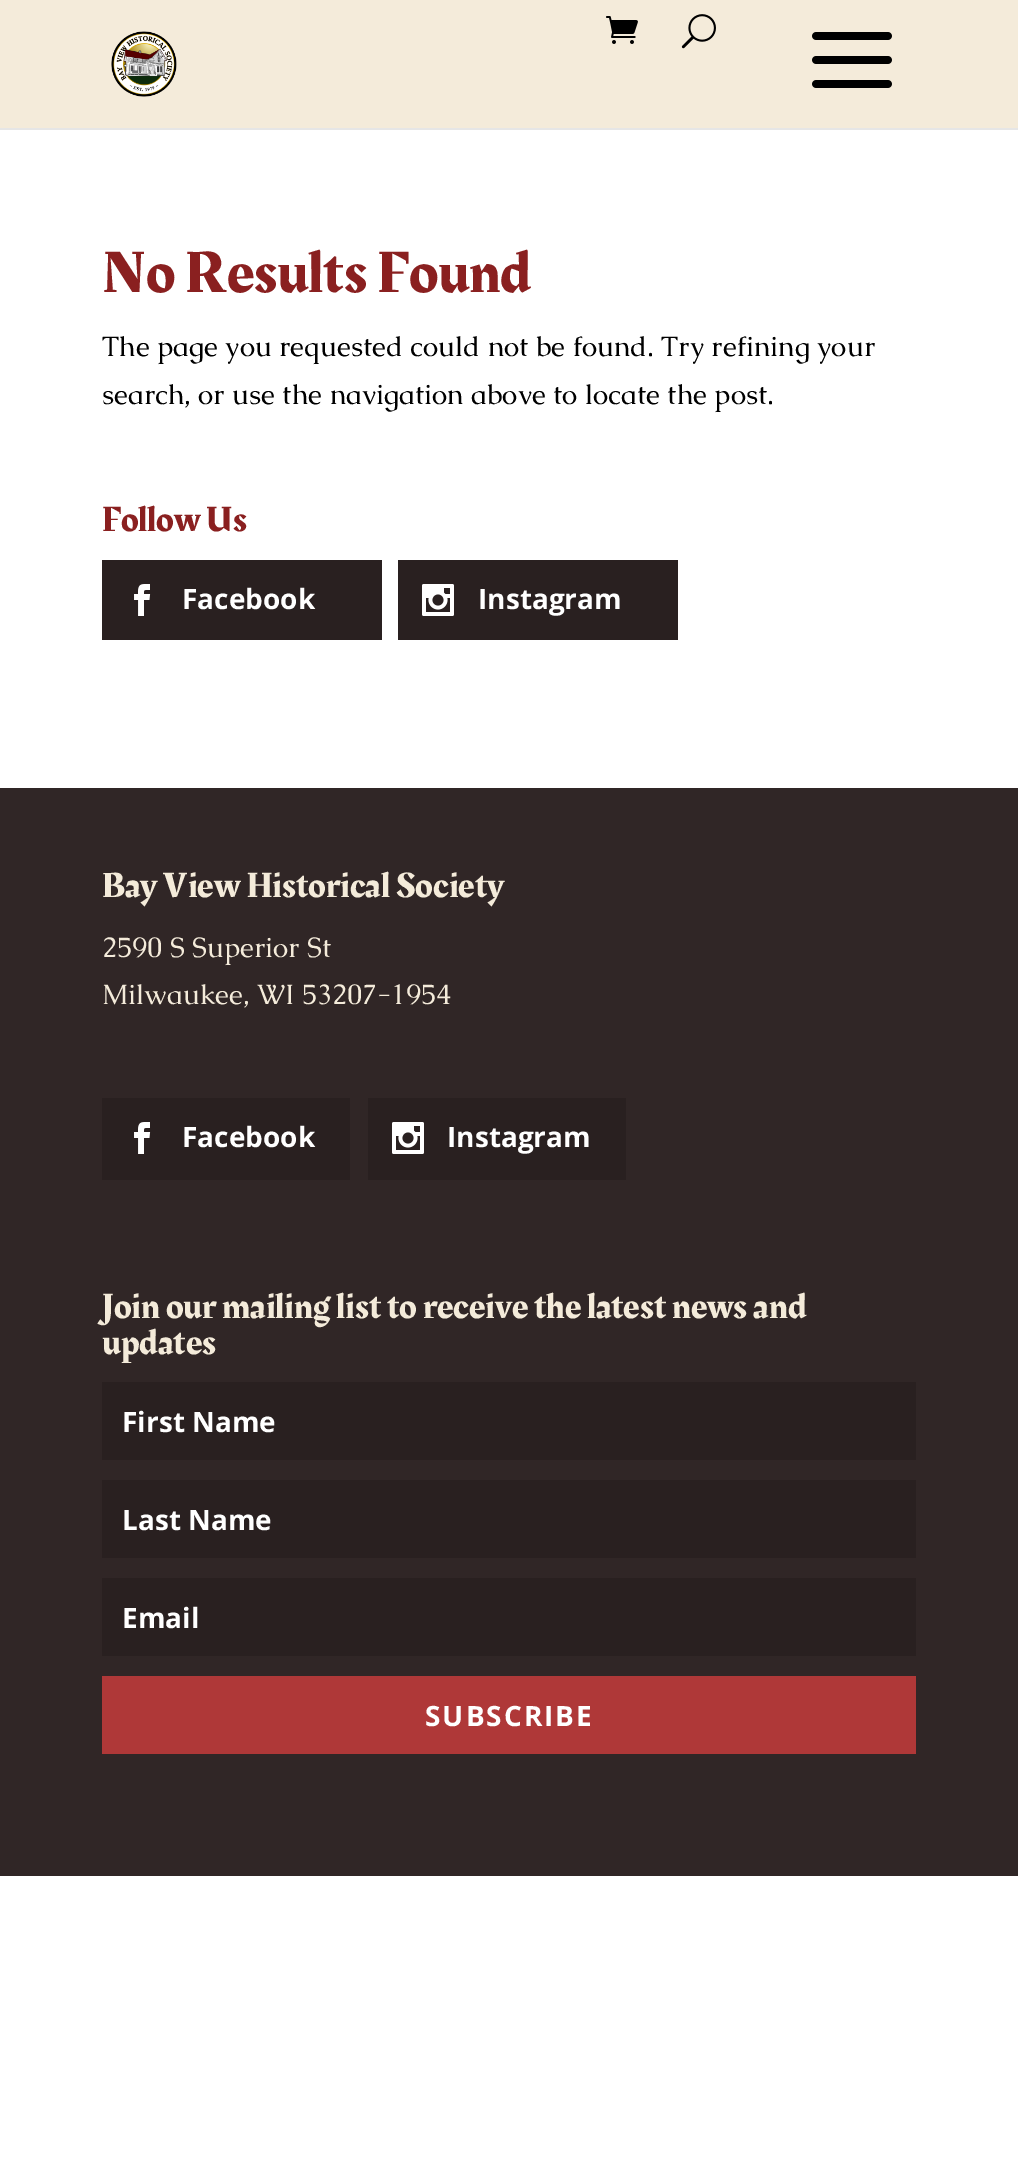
%!PS
<< /PageSize [1018 2157] >> setpagedevice
/rgb { dup -16 bitshift 255 div exch dup -8 bitshift 255 and 255 div exch 255 and 255 div setrgbcolor } def
/font { [ exch dup neg 0 0 3 -1 roll 0 0 ] selectfont } def
/text { moveto show } def
/picture { 5 dict begin { /h /w /y /x /name } { exch def } forall
  gsave x y translate w h scale
  w h 8 [w 0 0 h 0 0] name (r) file false 3 colorimage grestore end } def
0 2157 translate 1 -1 scale
4 setmiterlimit
/s1 { /Rakkas-Regular 60 font 16#8A2020 rgb } def
/s2 { /Caudex-Regular 28 font 16#000000 rgb } def
/s3 { /Rakkas-Regular 36 font 16#8A2020 rgb } def
/s4 { /OpenSans-Bold 28 font 16#FFFFFF rgb } def
/s5 { /Rakkas-Regular 36 font 16#F4EBDA rgb } def
/s6 { /Caudex-Regular 28 font 16#F4EBDA rgb } def
16#FFFFFF rgb
0 0 1018 2157 rectfill
16#E6E6E6 rgb
0 128 1018 2 rectfill
16#F4EBDA rgb
0 0 1018 128 rectfill
(pic1.raw) 111 31 66 66 picture
(pic2.raw) 606 16 32 28 picture
(pic3.raw) 681 14 35 35 picture
(pic4.raw) 812 32 80 56 picture
s1
(No Results Found) 102 292 text
s2
(The page you requested could not be found. Try refining your) 102 356 text
(search, or use the navigation above to locate the post.) 102 404 text
s3
(Follow Us) 102 531 text
16#292020 rgb
102 560 280 80 rectfill
(pic5.raw) 134 584 17 32 picture
s4
(Facebook) 182 609 text
16#292020 rgb
398 560 280 80 rectfill
(pic6.raw) 422 584 32 32 picture
s4
(Instagram) 478 609 text
16#302626 rgb
0 788 1018 1088 rectfill
s5
(Bay View Historical Society) 102 897 text
s6
(2590 S Superior St) 102 957 text
(Milwaukee, WI 53207-1954) 102 1004 text
16#292020 rgb
102 1098 248 82 rectfill
(pic5.raw) 134 1122 17 32 picture
s4
(Facebook) 182 1147 text
16#292020 rgb
368 1098 258 82 rectfill
(pic6.raw) 392 1122 32 32 picture
s4
(Instagram) 447 1147 text
s5
(Join our mailing list to receive the latest news and) 102 1318 text
(updates) 102 1354 text
16#292020 rgb
102 1382 814 78 rectfill
s4
(First Name) 122 1432 text
16#292020 rgb
102 1480 814 78 rectfill
s4
(Last Name) 122 1530 text
16#292020 rgb
102 1578 814 78 rectfill
s4
(Email) 122 1628 text
16#AF3838 rgb
102 1676 814 78 rectfill
16#FFFFFF rgb
425 1726 moveto 2 0 (SUBSCRIBE) ashow
showpage
